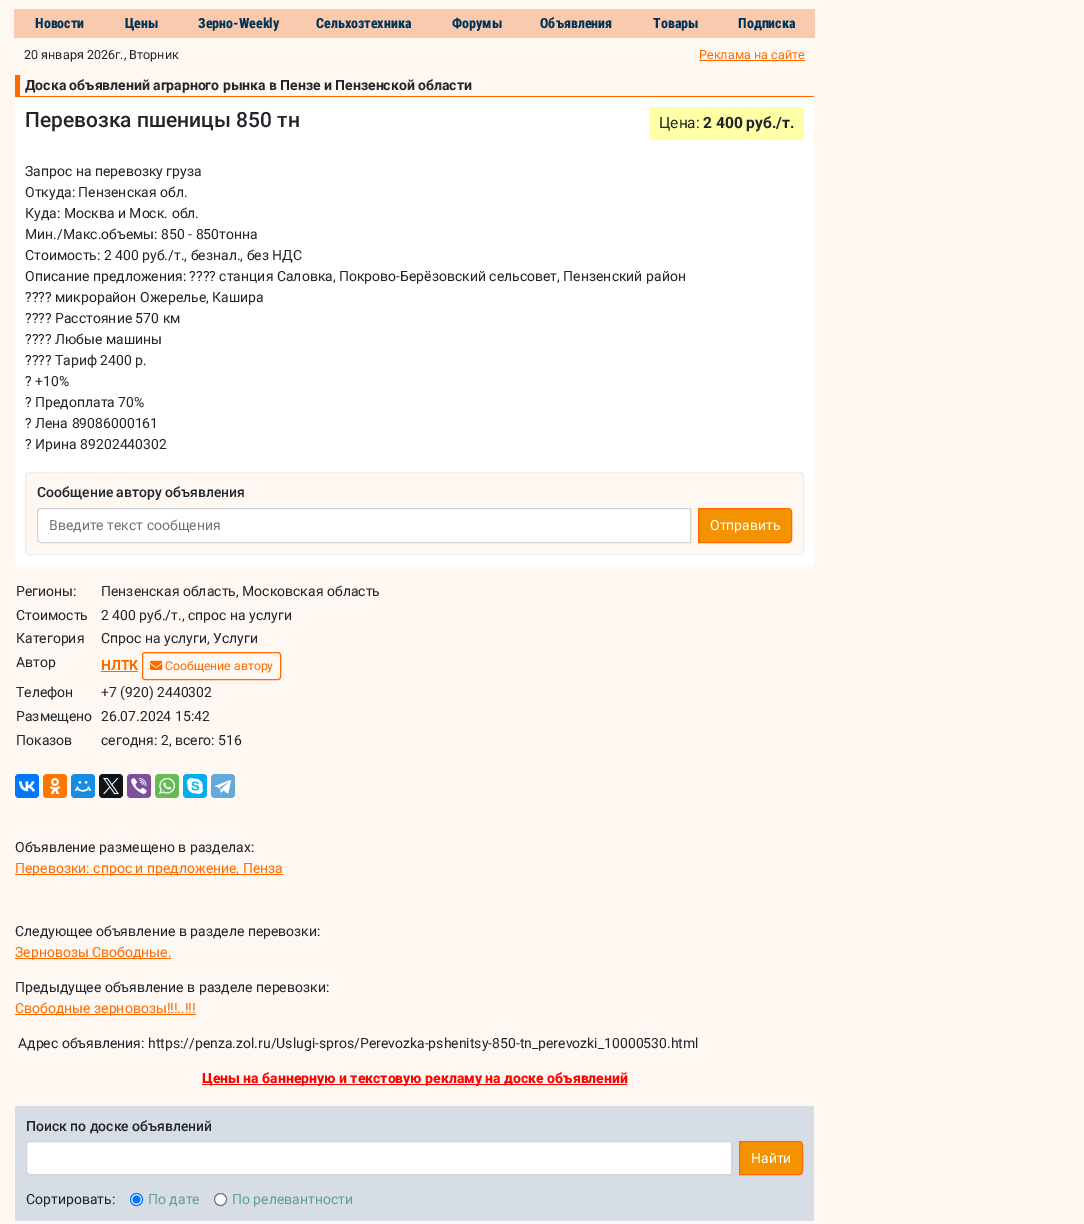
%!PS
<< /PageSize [1084 1224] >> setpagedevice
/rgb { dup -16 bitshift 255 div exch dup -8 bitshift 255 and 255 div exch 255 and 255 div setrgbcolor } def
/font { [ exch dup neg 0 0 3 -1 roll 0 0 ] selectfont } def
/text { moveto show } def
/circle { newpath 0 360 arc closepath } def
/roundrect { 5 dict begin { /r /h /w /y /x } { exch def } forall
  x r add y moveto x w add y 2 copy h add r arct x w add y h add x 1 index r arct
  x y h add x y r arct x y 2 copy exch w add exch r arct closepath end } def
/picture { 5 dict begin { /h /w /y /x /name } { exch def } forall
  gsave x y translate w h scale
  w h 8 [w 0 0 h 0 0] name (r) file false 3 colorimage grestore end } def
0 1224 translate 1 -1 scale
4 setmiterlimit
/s1 { /RobotoCondensed-ExtraBold 14 font 16#003357 rgb } def
/s2 { /Roboto-Regular 12.6 font 16#212529 rgb } def
/s3 { /Roboto-Regular 12.6 font 16#FF6A00 rgb } def
/s4 { /Roboto-Bold 14 font 16#212529 rgb } def
/s5 { /Roboto-Medium 21 font 16#212529 rgb } def
/s6 { /Roboto-Regular 15.5 font 16#212529 rgb } def
/s7 { /Roboto-Bold 15.5 font 16#212529 rgb } def
/s8 { /Roboto-Regular 14 font 16#212529 rgb } def
/s9 { /Roboto-Medium 14 font 16#212529 rgb } def
/s10 { /Roboto-Regular 14 font 16#6C757D rgb } def
/s11 { /Roboto-Regular 14 font 16#FFFFFF rgb } def
/s12 { /Roboto-Bold 14 font 16#FF6A00 rgb } def
/s13 { /Roboto-Regular 12.25 font 16#FF6A00 rgb } def
/s14 { /Roboto-Regular 14 font 16#FF6A00 rgb } def
/s15 { /Roboto-ExtraBold 14 font 16#FF0000 rgb } def
/s16 { /Roboto-Regular 14 font 16#5F9EA0 rgb } def
16#FFF7F2 rgb
0 0 1084 1224 rectfill
16#F9CAAD rgb
14 9 801 29 rectfill
s1
(Новости) 35 28 text
(Цены) 125 28 text
(Зерно-Weekly) 198 28 text
(Сельхозтехника) 316 28 text
(Форумы) 452 28 text
(Объявления) 540 28 text
(Товары) 653 28 text
(Подписка) 738 28 text
s2
(20 января 2026г., Вторник) 24 59 text
s3
(Реклама на сайте) 699 59 text
699 60 106 1 rectfill
15 96 799 1 rectfill
15 75 5 22 rectfill
s4
(Доска объявлений аграрного рынка в Пензе и Пензенской области) 25 90 text
16#FFFFFF rgb
15 97 799 468 rectfill
s5
(Перевозка пшеницы 850 тн) 25 127 text
16#FFFFA5 rgb
649 107 155 33 rectfill
s6
(Цена:) 659 128 text
s7
(2 400 руб./т.) 703 128 text
s8
(Запрос на перевозку груза) 25 176 text
(Откуда: Пензенская обл.) 25 197 text
(Куда: Москва и Моск. обл.) 25 218 text
(Мин./Макс.объемы: 850 - 850тонна) 25 239 text
(Стоимость: 2 400 руб./т., безнал., без НДС) 25 260 text
(Описание предложения: ???? станция Саловка, Покрово-Берёзовский сельсовет, Пензенский район) 25 281 text
(???? микрорайон Ожерелье, Кашира) 25 302 text
(???? Расстояние 570 км) 25 323 text
(???? Любые машины) 25 344 text
(???? Тариф 2400 р.) 25 365 text
(? +10%) 25 386 text
(? Предоплата 70%) 25 407 text
(? Лена 89086000161) 25 428 text
(? Ирина 89202440302) 25 449 text
16#FFF7F2 rgb
25.5 472.5 778 82 3.5 roundrect gsave fill grestore
16#EEEEEE rgb
stroke
s9
(Сообщение автору объявления) 37 497 text
16#FFFFFF rgb
40.5 509 moveto 690 509 lineto 690 542 lineto 40.5 542 lineto 39 542 38 541 38 539.5 curveto 38 511.5 lineto 38 510 39 509 40.5 509 curveto closepath fill
16#CED4DA rgb
41 508.5 moveto 690.5 508.5 lineto 690.5 542.5 lineto 41 542.5 lineto 39 542.5 37.5 541 37.5 539 curveto 37.5 512 lineto 37.5 510 39 508.5 41 508.5 curveto closepath stroke
s10
(Введите текст сообщения) 49 530 text
16#F49301 rgb
698.5 508.5 moveto 788 508.5 lineto 790 508.5 791.5 510 791.5 512 curveto 791.5 539 lineto 791.5 541 790 542.5 788 542.5 curveto 698.5 542.5 lineto closepath gsave fill grestore
16#FF6A00 rgb
stroke
s11
(Отправить) 710 530 text
s8
(Регионы:) 16 596 text
(Пензенская область, Московская область) 101 596 text
(Стоимость) 16 620 text
(2 400 руб./т., спрос на услуги) 101 620 text
(Категория) 16 643 text
(Спрос на услуги, Услуги) 101 643 text
(Автор) 16 667 text
s12
(НЛТК) 101 670 text
101 671 37 1 rectfill
142.5 652.5 138 27 2.5 roundrect stroke
(pic1.raw) 150 660 13 10 picture
s13
(Сообщение автору) 165 670 text
s8
(Телефон) 16 697 text
(+7 \(920\) 2440302) 101 697 text
(Размещено) 16 721 text
(26.07.2024 15:42) 101 721 text
(Показов) 16 745 text
(cегодня: 2, всего: 516) 101 745 text
16#0077FF rgb
15 774 24 24 4 roundrect fill
(pic2.raw) 19 781 16 11 picture
16#FF7700 rgb
43 774 24 24 4 roundrect fill
(pic3.raw) 49 778 12 16 picture
16#168DE2 rgb
71 774 24 24 4 roundrect fill
(pic4.raw) 75 781 16 11 picture
16#0F1419 rgb
99 774 24 24 4 roundrect fill
(pic5.raw) 103 778 16 16 picture
16#7B519D rgb
127 774 24 24 4 roundrect fill
(pic6.raw) 131 778 16 16 picture
16#65BC54 rgb
155 774 24 24 4 roundrect fill
(pic7.raw) 159 778 16 16 picture
16#00AFF0 rgb
183 774 24 24 4 roundrect fill
(pic8.raw) 187 778 16 16 picture
16#64A9DC rgb
211 774 24 24 4 roundrect fill
(pic9.raw) 215 780 16 14 picture
s8
(Объявление размещено в разделах:) 15 852 text
16#FF6A00 rgb
15 874 268 1 rectfill
(Перевозки: спрос и предложение, Пенза) 15 873 text
s8
(Следующее объявление в разделе перевозки:) 15 936 text
16#FF6A00 rgb
15 958 156 1 rectfill
(Зерновозы Свободные.) 15 957 text
s8
(Предыдущее объявление в разделе перевозки:) 15 992 text
16#FF6A00 rgb
15 1014 181 1 rectfill
(Свободные зерновозы!!!..!!!) 15 1013 text
s8
(Адрес объявления: https://penza.zol.ru/Uslugi-spros/Perevozka-pshenitsy-850-tn_perevozki_10000530.html) 18 1048 text
16#FF0000 rgb
202 1084 425 1 rectfill
s15
(Цены на баннерную и текстовую рекламу на доске объявлений) 202 1083 text
16#D6DDE4 rgb
15 1106 799 115 rectfill
s9
(Поиск по доске объявлений) 26 1131 text
16#FFFFFF rgb
29.5 1142 moveto 731 1142 lineto 731 1174 lineto 29.5 1174 lineto 28 1174 27 1173 27 1171.5 curveto 27 1144.5 lineto 27 1143 28 1142 29.5 1142 curveto closepath fill
16#CED4DA rgb
30 1141.5 moveto 731.5 1141.5 lineto 731.5 1174.5 lineto 30 1174.5 lineto 28 1174.5 26.5 1173 26.5 1171 curveto 26.5 1145 lineto 26.5 1143 28 1141.5 30 1141.5 curveto closepath stroke
16#F49301 rgb
739.5 1141.5 moveto 799 1141.5 lineto 801 1141.5 802.5 1143 802.5 1145 curveto 802.5 1171 lineto 802.5 1173 801 1174.5 799 1174.5 curveto 739.5 1174.5 lineto closepath gsave fill grestore
16#FF6A00 rgb
stroke
s11
(Найти) 751 1163 text
s8
(Сортировать:) 26 1204 text
16#FFFFFF rgb
136.5 1199.5 6 circle gsave fill grestore
16#0075FF rgb
stroke
136.5 1199.5 4 circle fill
s16
(По дате) 148 1204 text
16#FFFFFF rgb
220.5 1199.5 6 circle gsave fill grestore
16#767676 rgb
stroke
s16
(По релевантности) 232 1204 text
showpage
